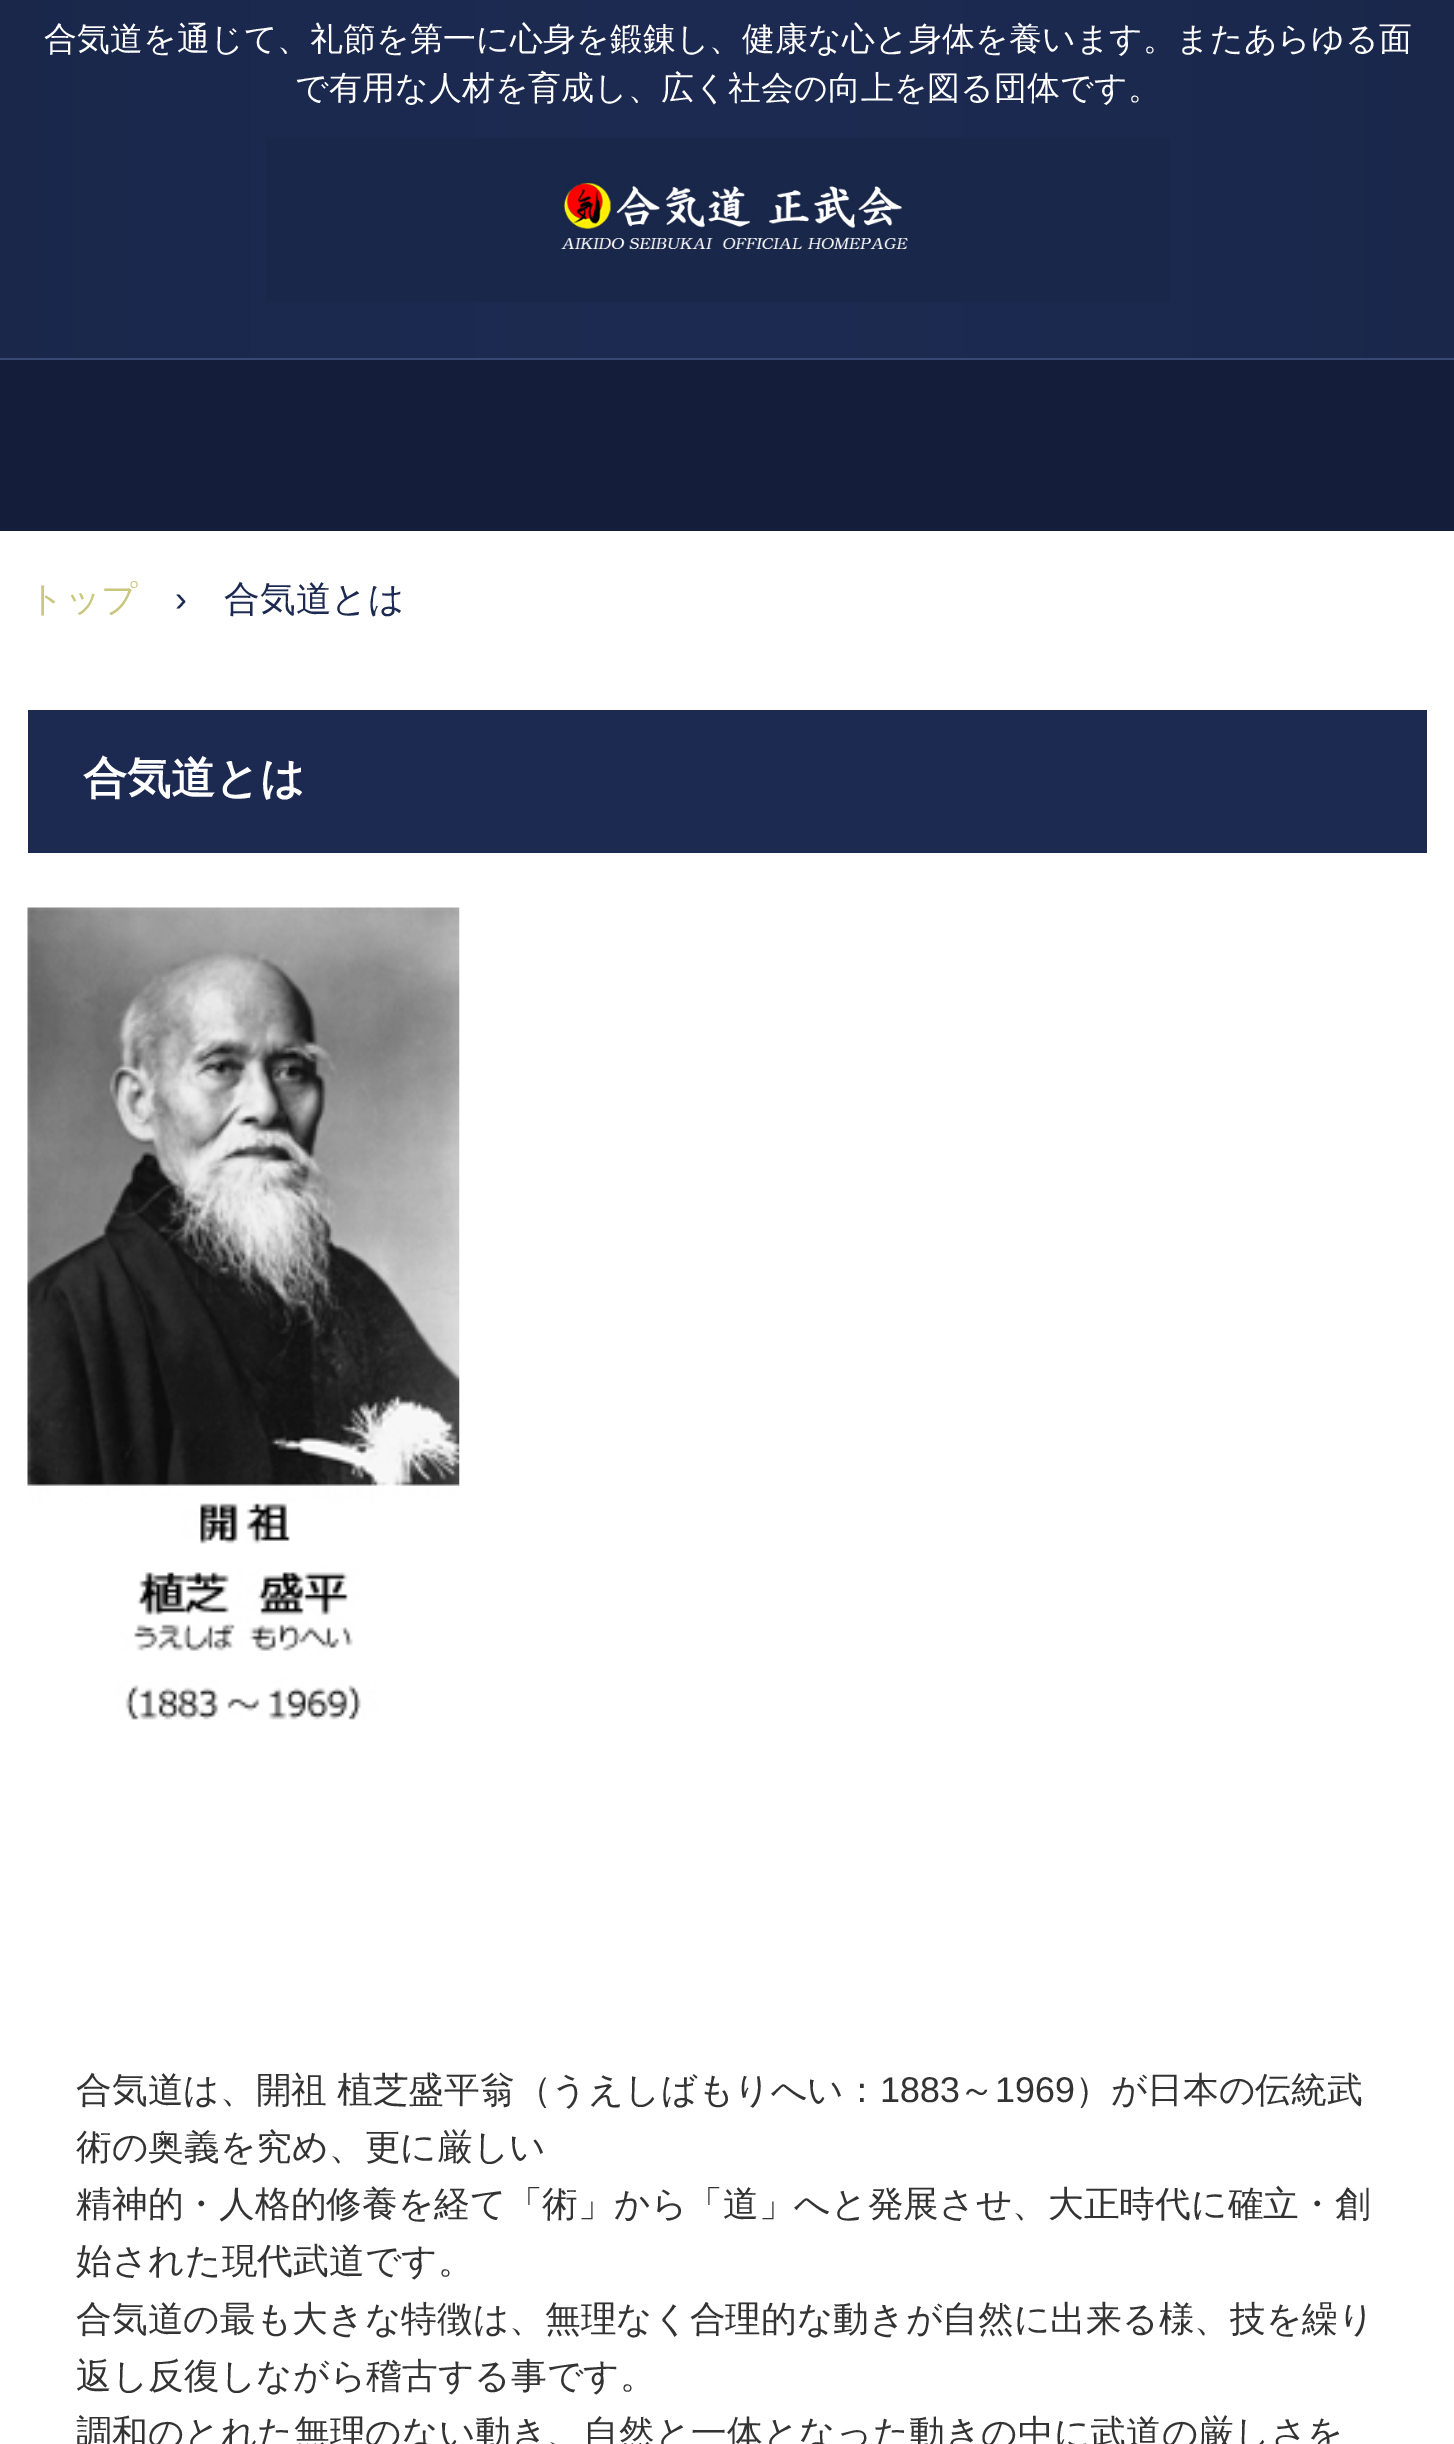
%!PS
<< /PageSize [1454 2444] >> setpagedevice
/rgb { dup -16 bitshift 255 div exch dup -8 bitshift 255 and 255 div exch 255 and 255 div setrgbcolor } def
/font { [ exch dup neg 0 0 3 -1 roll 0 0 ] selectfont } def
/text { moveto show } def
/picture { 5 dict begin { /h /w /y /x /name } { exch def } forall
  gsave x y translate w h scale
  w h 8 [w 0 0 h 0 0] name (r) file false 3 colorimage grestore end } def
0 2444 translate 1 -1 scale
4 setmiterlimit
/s1 { /WenQuanYiZenHei-Medium 33 font 16#FFFFFF rgb } def
/s2 { /WenQuanYiZenHei-Medium 35.75 font 16#C9C67D rgb } def
/s3 { /LiberationSans-Regular 35.75 font 16#1C2A51 rgb } def
/s4 { /WenQuanYiZenHei-Medium 35.75 font 16#1C2A51 rgb } def
/s5 { /WenQuanYiZenHei-Bold 44 font 16#FFFFFF rgb } def
/s6 { /LiberationSans-Regular 35.75 font 16#333333 rgb } def
/s7 { /WenQuanYiZenHei-Medium 35.75 font 16#333333 rgb } def
16#FFFFFF rgb
0 0 1454 2444 rectfill
(pic1.raw) 0 0 1454 358 picture
16#374874 rgb
0 358 1454 2 rectfill
s1
(合気道を通じて、礼節を第一に心身を鍛錬し、健康な心と身体を養います。またあらゆる面) 44 50 text
(で有用な人材を育成し、広く社会の向上を図る団体です。) 295 99 text
(pic2.raw) 267 138 904 164 picture
16#141E3A rgb
0 360 1454 171 rectfill
s2
(トップ) 28 611 text
s3
(›) 175 611 text
s4
(合気道とは) 224 611 text
28 710 1399 143 rectfill
s5
(合気道とは) 83 793 text
(pic3.raw) 27 907 433 813 picture
/WenQuanYiZenHei-Medium 35.75 font
16#333333 rgb
76 2102 moveto -1 0 32 (合気道は、開祖 植芝盛平翁（うえしばもりへい：) widthshow
s6
(1883) 880 2102 text
s7
(～) 959 2102 text
s6
(1969) 995 2102 text
s7
(）が日本の伝統武) 1075 2102 text
(術の奥義を究め、更に厳しい) 76 2159 text
(精神的・人格的修養を経て「術」から「道」へと発展させ、大正時代に確立・創) 76 2216 text
(始された現代武道です。) 76 2273 text
(合気道の最も大きな特徴は、無理なく合理的な動きが自然に出来る様、技を繰り) 76 2331 text
(返し反復しながら稽古する事です。) 76 2388 text
(調和のとれた無理のない動き、自然と一体となった動きの中に武道の厳しさを) 76 2445 text
showpage
